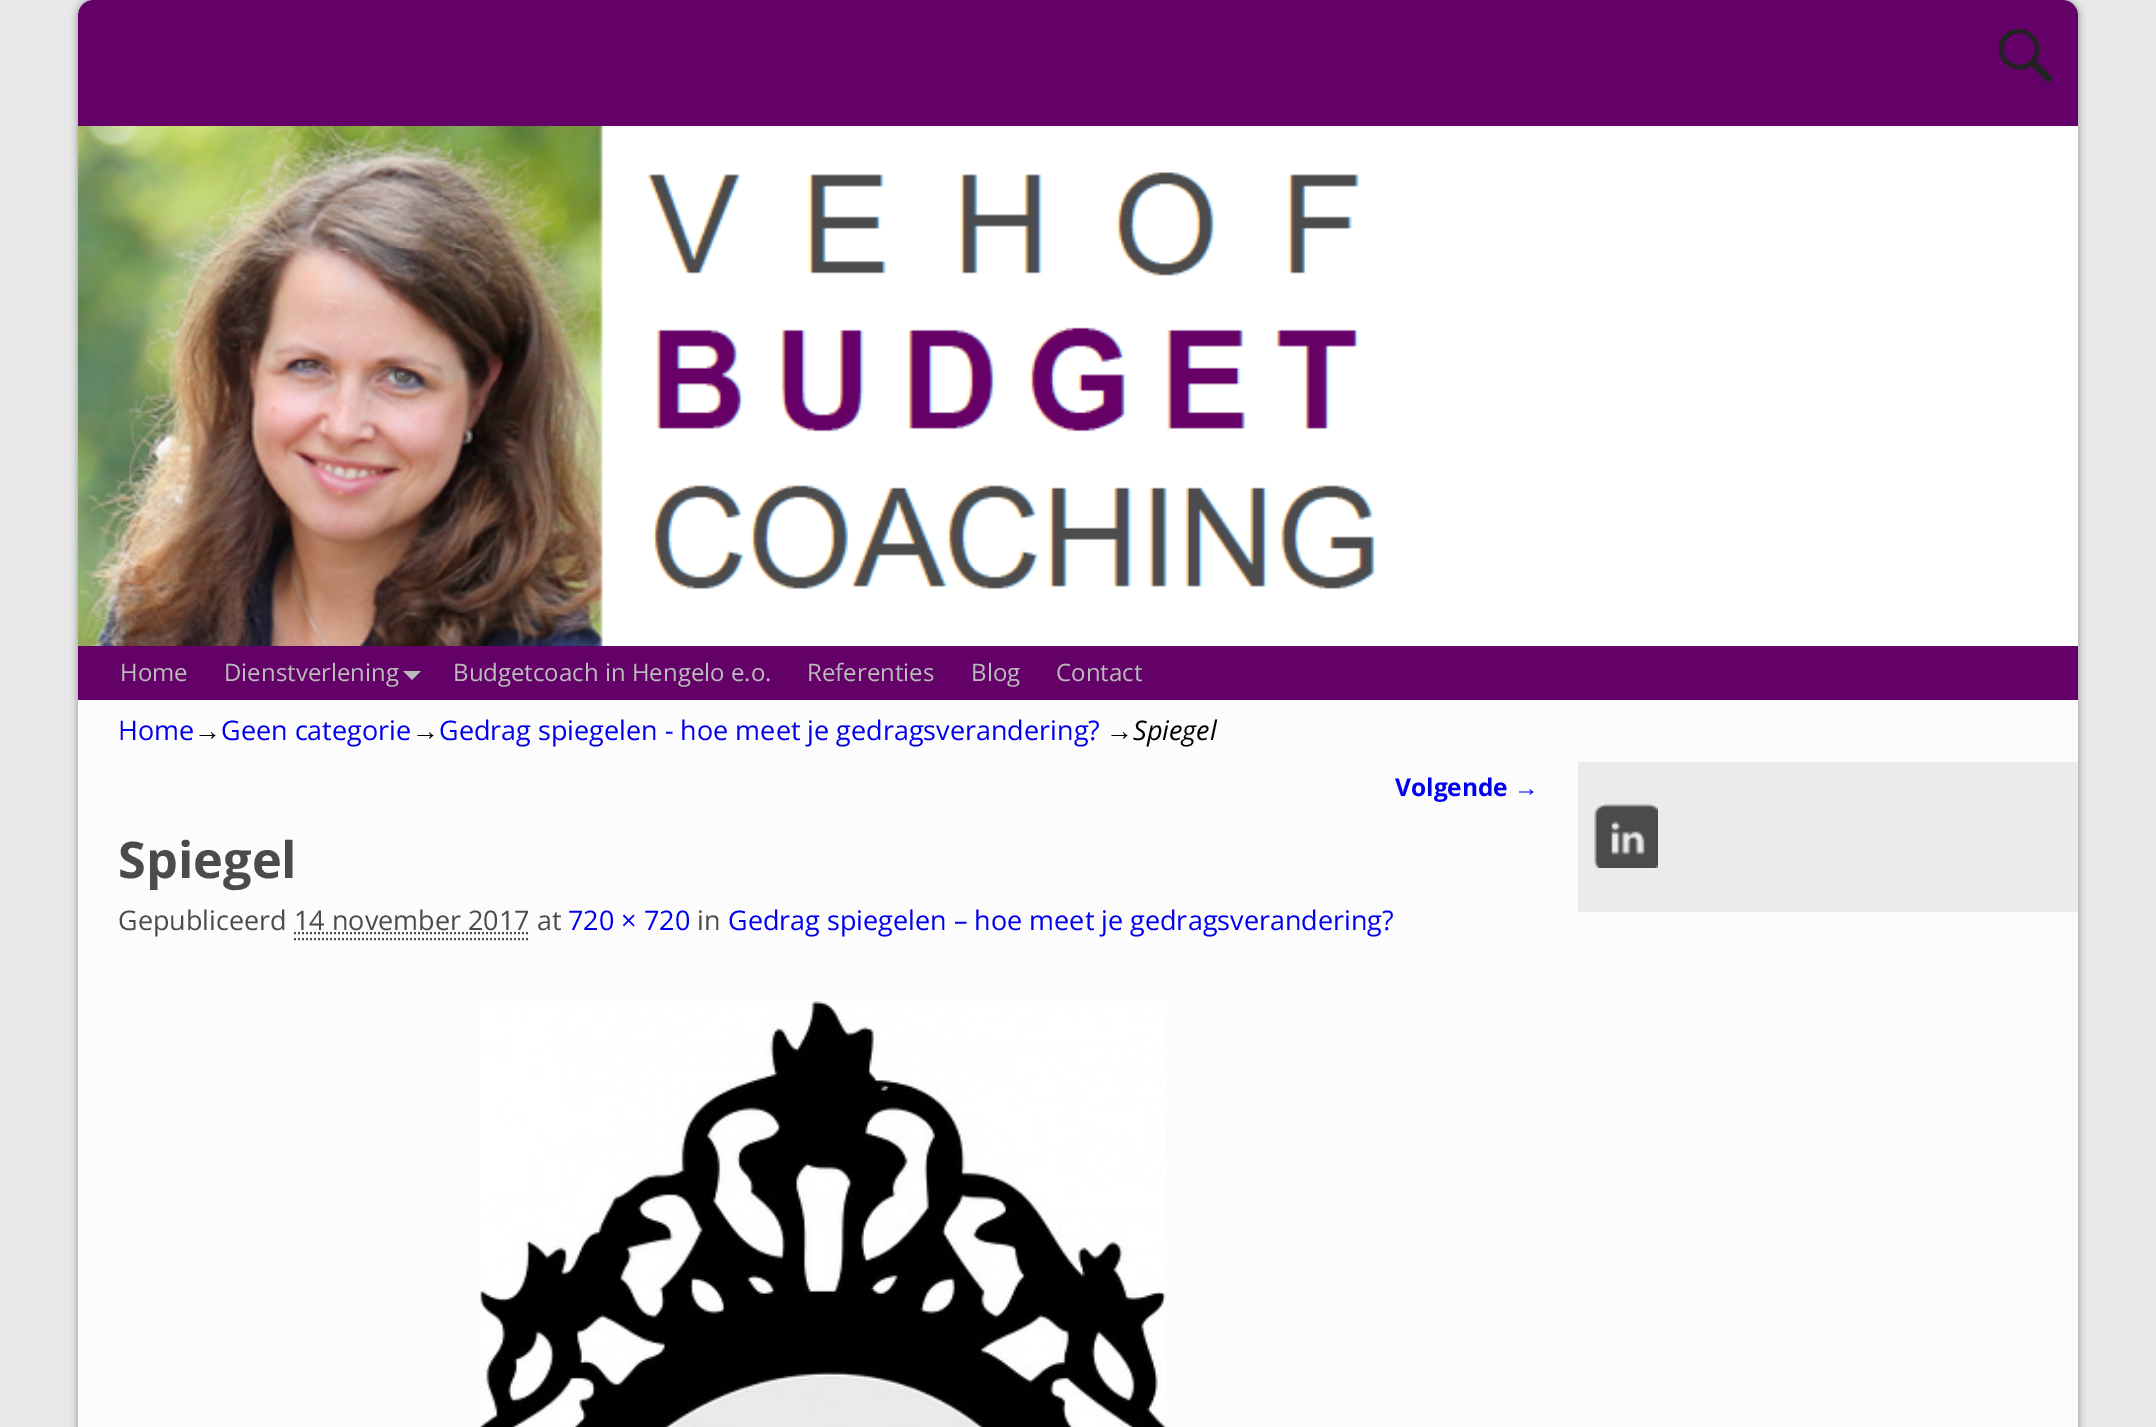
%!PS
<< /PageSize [2156 1427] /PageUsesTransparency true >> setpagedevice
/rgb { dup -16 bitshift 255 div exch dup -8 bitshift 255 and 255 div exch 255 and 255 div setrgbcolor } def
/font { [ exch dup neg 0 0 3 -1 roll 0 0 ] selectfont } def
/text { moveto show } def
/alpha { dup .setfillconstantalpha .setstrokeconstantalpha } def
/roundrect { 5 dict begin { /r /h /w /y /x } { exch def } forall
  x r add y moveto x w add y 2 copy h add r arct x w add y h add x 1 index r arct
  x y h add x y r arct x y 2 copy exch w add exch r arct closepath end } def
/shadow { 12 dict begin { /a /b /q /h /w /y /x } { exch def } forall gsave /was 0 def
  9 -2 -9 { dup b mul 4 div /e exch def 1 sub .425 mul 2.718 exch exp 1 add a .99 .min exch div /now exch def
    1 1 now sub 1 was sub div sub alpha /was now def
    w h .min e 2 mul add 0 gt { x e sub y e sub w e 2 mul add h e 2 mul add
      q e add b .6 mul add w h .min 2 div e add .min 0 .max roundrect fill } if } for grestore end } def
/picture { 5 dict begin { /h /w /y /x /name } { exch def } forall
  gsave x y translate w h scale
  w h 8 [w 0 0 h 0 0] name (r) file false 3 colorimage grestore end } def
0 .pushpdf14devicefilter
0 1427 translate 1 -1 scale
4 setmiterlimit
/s1 { /OpenSans-Regular 24 font 16#BBBBBB rgb } def
/s2 { /OpenSans-Regular 27 font 16#0000EE rgb } def
/s3 { /LiberationSans-Regular 27 font 16#000000 rgb } def
/s4 { /OpenSans-Italic 27 font 16#000000 rgb } def
/s5 { /OpenSans-Bold 24.5 font 16#0000EE rgb } def
/s6 { /LiberationSans-Bold 24.5 font 16#0000EE rgb } def
/s7 { /OpenSans-Bold 50.5 font 16#4B4B4B rgb } def
/s8 { /OpenSans-Regular 27 font 16#4B4B4B rgb } def
16#E8E8E8 rgb
0 0 2156 1427 rectfill
16#000000 rgb
76 -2 2004 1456 18 3 0.25 shadow
16#FCFCFC rgb
78 0 2000 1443 16 roundrect fill
16#630168 rgb
94 0 moveto 2062 0 lineto 2071 0 2078 7 2078 16 curveto 2078 700 lineto 78 700 lineto 78 16 lineto 78 7 85 0 94 0 curveto closepath fill
16#222222 rgb
2053 78 moveto 2048 83 lineto 2031 66 lineto 2021 73 2007 69 2001 58 curveto 1999 54 1999 50 1999 45 curveto 2003 24 2033 24 2039 44 curveto 2040 50 2039 56 2036 61 curveto closepath 2006 41 moveto 1995 59 2022 75 2033 57 curveto 2043 39 2016 23 2006 41 curveto closepath fill
(pic1.raw) 78 126 2000 520 picture
s1
(Home) 120 681 text
(Dienstverlening) 224 681 text
403 671 moveto 421 671 lineto 412 680 lineto closepath fill
(Budgetcoach in Hengelo e.o.) 453 681 text
(Referenties) 807 681 text
(Blog) 971 681 text
(Contact) 1056 681 text
s2
(Home) 118 740 text
s3
(→) 194 740 text
s2
(Geen categorie) 221 740 text
s3
(→) 412 740 text
s2
(Gedrag spiegelen - hoe meet je gedragsverandering?) 439 740 text
s3
(→) 1106 740 text
s4
(Spiegel) 1133 740 text
s5
(Volgende) 1395 796 text
s6
(→) 1514 796 text
s7
(Spiegel) 118 878 text
s8
(Gepubliceerd 14 november 2017 at) 118 930 text
s2
(720 × 720) 568 930 text
s8
(in) 697 930 text
s2
(Gedrag spiegelen – hoe meet je gedragsverandering?) 728 930 text
16#4B4B4B rgb
2 setlinewidth
[2 2] 0 setdash
294 933 moveto 529.5 933 lineto stroke
294 939 moveto 530 939 lineto stroke
(pic2.raw) 480 1001 686 426 picture
16#ECEAED rgb
1578 762 500 150 rectfill
(pic3.raw) 1594 804 64 64 picture
.poppdf14devicefilter showpage
